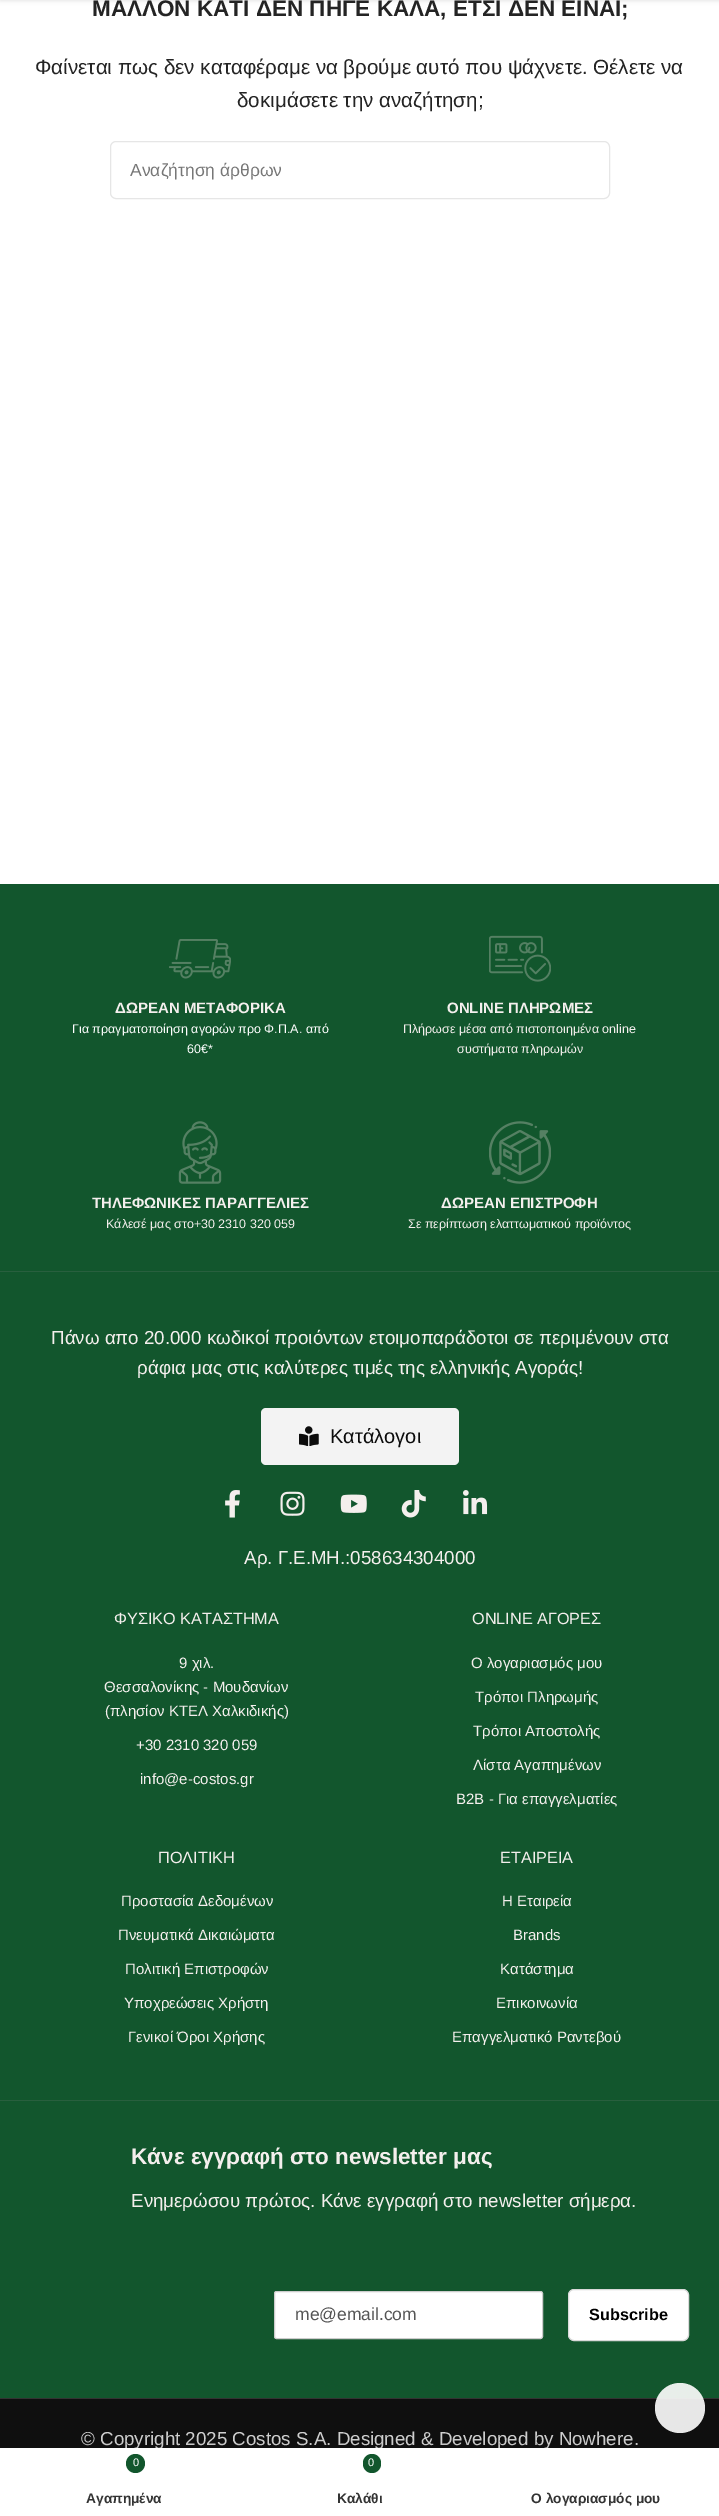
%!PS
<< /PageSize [719 2516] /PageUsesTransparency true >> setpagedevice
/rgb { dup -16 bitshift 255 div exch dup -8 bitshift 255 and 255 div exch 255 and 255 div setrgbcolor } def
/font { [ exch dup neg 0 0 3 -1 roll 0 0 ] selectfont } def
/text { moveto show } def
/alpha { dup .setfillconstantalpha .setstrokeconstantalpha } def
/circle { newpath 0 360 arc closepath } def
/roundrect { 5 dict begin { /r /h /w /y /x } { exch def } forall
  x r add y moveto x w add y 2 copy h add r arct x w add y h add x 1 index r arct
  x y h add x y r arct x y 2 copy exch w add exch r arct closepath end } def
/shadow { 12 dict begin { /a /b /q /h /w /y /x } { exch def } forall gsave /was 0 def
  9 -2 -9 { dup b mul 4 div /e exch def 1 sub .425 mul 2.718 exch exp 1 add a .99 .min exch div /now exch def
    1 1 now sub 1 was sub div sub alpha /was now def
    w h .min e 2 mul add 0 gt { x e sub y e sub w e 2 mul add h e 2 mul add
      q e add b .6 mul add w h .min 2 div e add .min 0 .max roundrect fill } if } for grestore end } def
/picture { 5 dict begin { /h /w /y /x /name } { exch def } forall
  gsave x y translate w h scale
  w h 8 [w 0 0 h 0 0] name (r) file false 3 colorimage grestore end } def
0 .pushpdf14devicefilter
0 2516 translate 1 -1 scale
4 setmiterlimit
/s1 { /LiberationSans-Bold 22.5 font 16#242424 rgb } def
/s2 { /LiberationSans-Regular 20.6 font 16#242424 rgb } def
/s3 { /LiberationSans-Regular 17.5 font 16#777777 rgb } def
/s4 { /LiberationSans-Bold 15 font 16#F4EFED rgb } def
/s5 { /LiberationSans-Regular 12.5 font 16#FFFFFF rgb } def
/s6 { /LiberationSans-Regular 12.5 font 16#F4EFED rgb } def
/s7 { /LiberationSans-Regular 18.75 font 16#F4EFED rgb } def
/s8 { /LiberationSans-Regular 20 font 16#0C0C0C rgb } def
/s9 { /LiberationSans-Regular 16.25 font 16#F4EFED rgb } def
/s10 { /LiberationSans-Regular 15 font 16#F4EFED rgb } def
/s11 { /LiberationSans-Bold 22.5 font 16#F4EFED rgb } def
/s12 { /LiberationSans-Regular 17.5 font 16#555555 rgb } def
/s13 { /LiberationSans-Bold 16.25 font 16#000000 rgb } def
/s14 { /LiberationSans-Regular 18.75 font 16#CFCFCF rgb } def
/s15 { /LiberationSans-Regular 11 font 16#FFFFFF rgb } def
/s16 { /LiberationSans-Bold 13.75 font 16#333333 rgb } def
16#FFFFFF rgb
0 0 719 2516 rectfill
16#000000 rgb
0 -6 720 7 0 2 0.1 shadow
s1
(ΜΑΛΛΟΝ ΚΑΤΙ ΔΕΝ ΠΗΓΕ ΚΑΛΑ, ΕΤΣΙ ΔΕΝ ΕΙΝΑΙ;) 92 16 text
s2
(Φαίνεται πως δεν καταφέραμε να βρούμε αυτό που ψάχνετε. Θέλετε να) 35 74 text
(δοκιμάσετε την αναζήτηση;) 237 107 text
16#E6E6E6 rgb
110.5 141.5 499 57 5.5 roundrect stroke
s3
(Αναζήτηση άρθρων) 130 176 text
16#0F0F0F rgb
0 2399 719 49 rectfill
16#12562D rgb
0 884 719 1216 rectfill
16#285F3E rgb
0 1271 719 1 rectfill
(pic1.raw) 169 939 62 40 picture
s4
(ΔΩΡΕΑΝ ΜΕΤΑΦΟΡΙΚΑ) 115 1013 text
s5
(Για πραγματοποίηση αγορών προ Φ.Π.Α. από) 72 1033 text
(60€*) 187 1053 text
(pic2.raw) 489 935 62 47 picture
s4
(ONLINE ΠΛΗΡΩΜΕΣ) 447 1013 text
s6
(Πλήρωσε μέσα από πιστοποιημένα online) 403 1033 text
(συστήματα πληρωμών) 457 1053 text
(pic3.raw) 178 1121 44 63 picture
s4
(ΤΗΛΕΦΩΝΙΚΕΣ ΠΑΡΑΓΓΕΛΙΕΣ) 92 1208 text
s6
(Κάλεσέ μας στο+30 2310 320 059) 106 1228 text
(pic4.raw) 489 1121 62 63 picture
s4
(ΔΩΡΕΑΝ ΕΠΙΣΤΡΟΦΗ) 441 1208 text
s6
(Σε περίπτωση ελαττωματικού προϊόντος) 408 1228 text
16#285F3E rgb
0 2100 719 1 rectfill
s7
(Πάνω απο 20.000 κωδικοί προιόντων ετοιμοπαράδοτοι σε περιμένουν στα) 51 1344 text
(ράφια μας στις καλύτερες τιμές της ελληνικής Αγοράς!) 137 1374 text
16#F3F3F3 rgb
261 1408 198 57 5 roundrect fill
(pic5.raw) 299 1426 20 20 picture
s8
(Κατάλογοι) 330 1443 text
(pic6.raw) 225 1490 15 28 picture
(pic7.raw) 280 1491 25 25 picture
(pic8.raw) 340 1494 27 19 picture
(pic9.raw) 401 1490 25 28 picture
(pic10.raw) 463 1490 25 25 picture
s7
(Αρ. Γ.Ε.ΜΗ.:058634304000) 244 1564 text
s9
(ΦΥΣΙΚΟ ΚΑΤΑΣΤΗΜΑ) 114 1624 text
s10
(9 χιλ.) 179 1668 text
(Θεσσαλονίκης - Μουδανίων) 104 1692 text
(\(πλησίον ΚΤΕΛ Χαλκιδικής\)) 105 1716 text
(+30 2310 320 059) 136 1750 text
(info@e-costos.gr) 140 1784 text
s9
(ONLINE ΑΓΟΡΕΣ) 472 1624 text
s10
(Ο λογαριασμός μου) 471 1668 text
(Τρόποι Πληρωμής) 475 1702 text
(Τρόποι Αποστολής) 473 1736 text
(Λίστα Αγαπημένων) 473 1770 text
(B2B - Για επαγγελματίες) 456 1804 text
s9
(ΠΟΛΙΤΙΚΗ) 158 1863 text
s10
(Προστασία Δεδομένων) 121 1906 text
(Πνευματικά Δικαιώματα) 118 1940 text
(Πολιτική Επιστροφών) 125 1974 text
(Υποχρεώσεις Χρήστη) 124 2008 text
(Γενικοί Όροι Χρήσης) 128 2042 text
s9
(ΕΤΑΙΡΕΙΑ) 500 1863 text
s10
(Η Εταιρεία) 502 1906 text
(Brands) 513 1940 text
(Κατάστημα) 500 1974 text
(Επικοινωνία) 496 2008 text
(Επαγγελματικό Ραντεβού) 452 2042 text
16#12562D rgb
0 2101 719 297 rectfill
s11
(Κάνε εγγραφή στο newsletter μας) 131 2164 text
s7
(Ενημερώσου πρώτος. Κάνε εγγραφή στο newsletter σήμερα.) 131 2207 text
16#FFFFFF rgb
274.5 2291.5 268 47 2 roundrect gsave fill grestore
16#CCCCCC rgb
stroke
s12
(me@email.com) 295 2320 text
16#FFFFFF rgb
568.5 2289.5 120 51 5.5 roundrect gsave fill grestore
16#D9D9D9 rgb
stroke
s13
(Subscribe) 589 2320 text
16#333333 rgb
0 2398 719 1 rectfill
s14
(© Copyright 2025 Costos S.A. Designed & Developed by Nowhere.) 81 2445 text
0.9 alpha
16#FFFFFF rgb
680 2408 25 circle fill
1 alpha
16#000000 rgb
0 2448 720 68 0 5.5 0.12 shadow
16#FFFFFF rgb
0 2448 719 68 rectfill
16#12562D rgb
135.5 2463.5 9.5 circle fill
s15
(0) 133 2466 text
s16
(Αγαπημένα) 86 2503 text
16#12562D rgb
363 2454 18 19 9 roundrect fill
s15
(0) 368 2466 text
s16
(Καλάθι) 337 2503 text
(Ο λογαριασμός μου) 531 2503 text
.poppdf14devicefilter showpage
